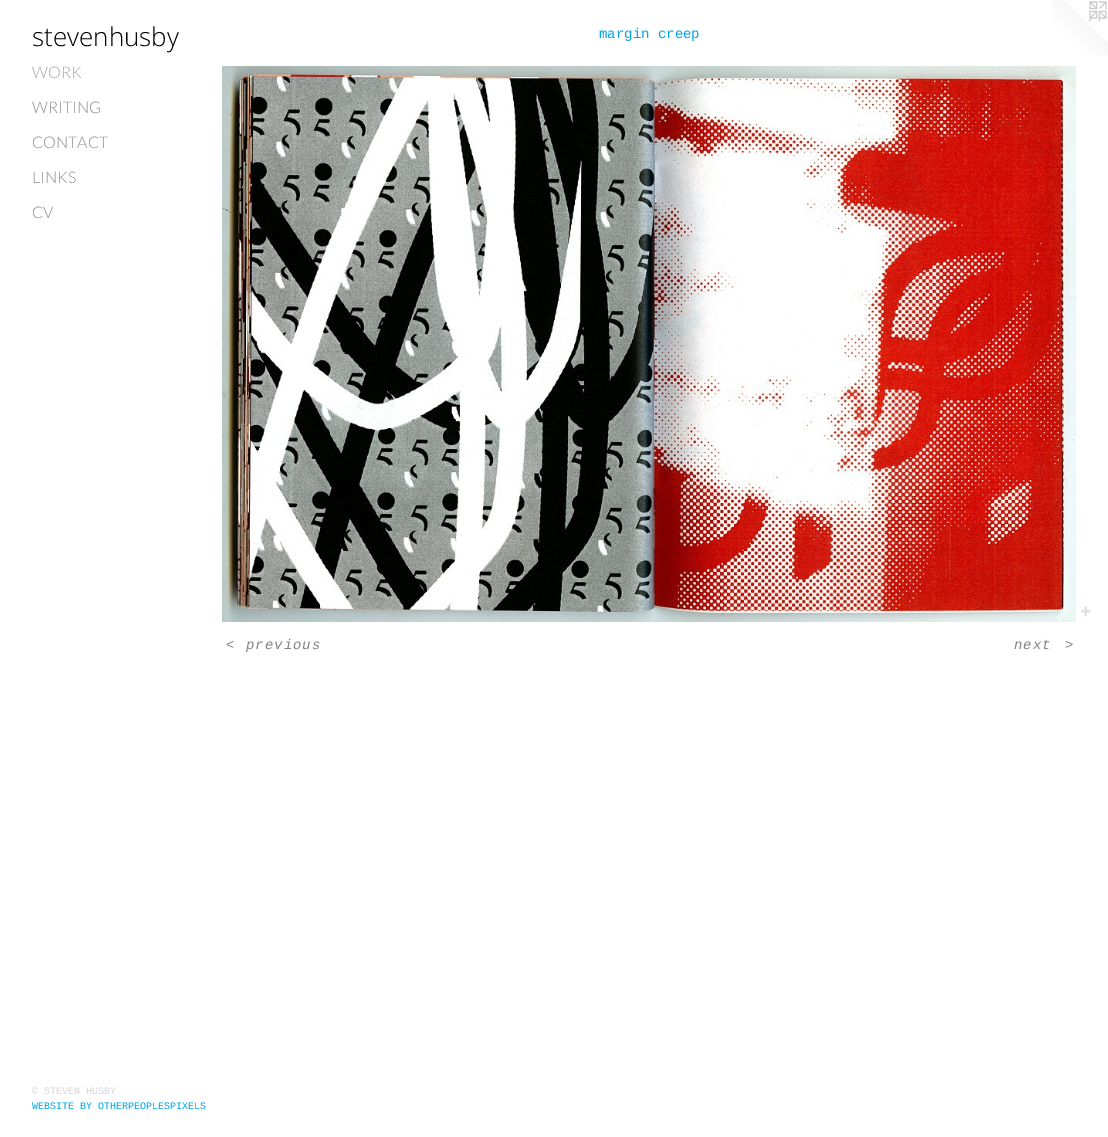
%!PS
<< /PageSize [1108 1137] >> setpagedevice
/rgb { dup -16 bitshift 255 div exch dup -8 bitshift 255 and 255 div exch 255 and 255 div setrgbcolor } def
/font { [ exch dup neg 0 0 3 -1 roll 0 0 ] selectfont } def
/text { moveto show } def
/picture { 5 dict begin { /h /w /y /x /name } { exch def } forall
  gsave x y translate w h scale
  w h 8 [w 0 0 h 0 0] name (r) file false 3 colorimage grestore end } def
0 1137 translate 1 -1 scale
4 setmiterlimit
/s1 { /OpenSans-Light 26 font 16#000000 rgb } def
/s2 { /Lato-Light 16 font 16#A6A5A6 rgb } def
/s3 { /Lato-Light 16 font 16#8C8B8D rgb } def
/s4 { /LiberationMono-Regular 10 font 16#D6D6D6 rgb } def
/s5 { /LiberationMono-Regular 10 font 16#00A7E6 rgb } def
/s6 { /LiberationMono-Regular 14 font 16#00A7E6 rgb } def
16#FFFFFF rgb
0 0 1108 1137 rectfill
s1
(stevenhusby) 32 46 text
s2
(WORK) 32 78 text
s3
(WRITING) 32 113 text
(CONTACT) 32 148 text
(LINKS) 32 183 text
(CV) 32 218 text
s4
(© STEVEN HUSBY) 32 1094 text
s5
(WEBSITE BY OTHERPEOPLESPIXELS) 32 1109 text
s6
(margin creep) 599 38 text
(pic1.raw) 222 66 854 556 picture
(pic2.raw) 1081 606 10 10 picture
/LiberationMono-Italic 14 font
16#828282 rgb
226 649 moveto 1 0 (<) ashow
246 649 moveto 1 0 (previous) ashow
1014 649 moveto 1 0 (next) ashow
1065 649 moveto 1 0 (>) ashow
(pic3.raw) 1052 0 56 56 picture
showpage
